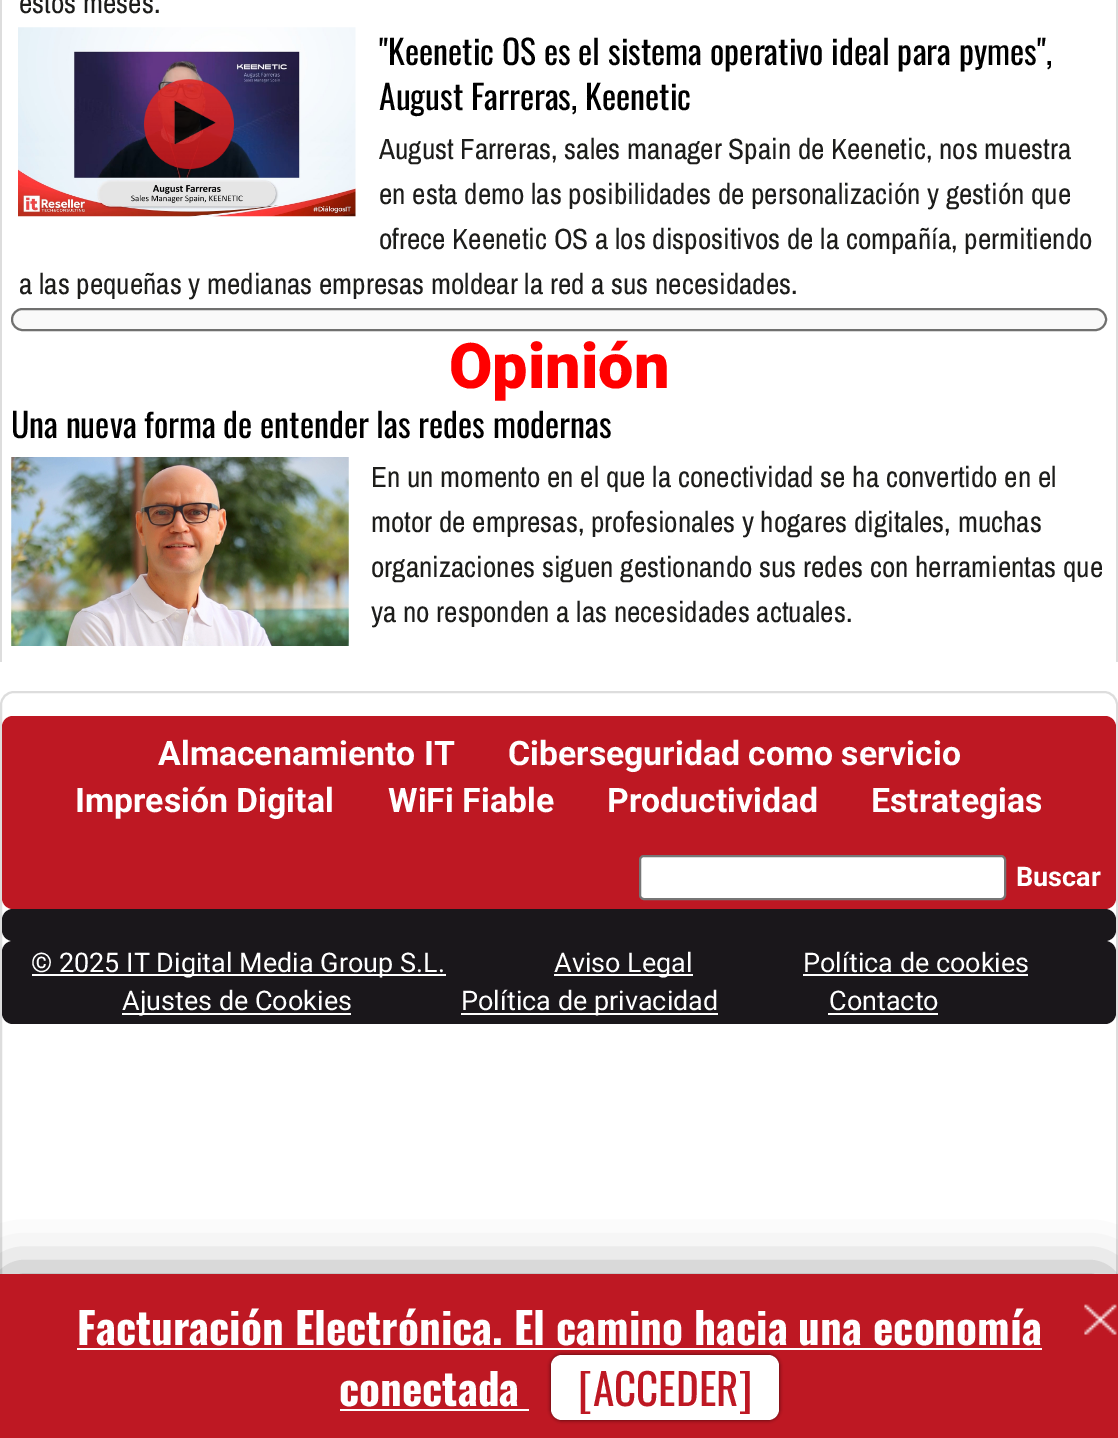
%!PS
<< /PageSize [1118 1438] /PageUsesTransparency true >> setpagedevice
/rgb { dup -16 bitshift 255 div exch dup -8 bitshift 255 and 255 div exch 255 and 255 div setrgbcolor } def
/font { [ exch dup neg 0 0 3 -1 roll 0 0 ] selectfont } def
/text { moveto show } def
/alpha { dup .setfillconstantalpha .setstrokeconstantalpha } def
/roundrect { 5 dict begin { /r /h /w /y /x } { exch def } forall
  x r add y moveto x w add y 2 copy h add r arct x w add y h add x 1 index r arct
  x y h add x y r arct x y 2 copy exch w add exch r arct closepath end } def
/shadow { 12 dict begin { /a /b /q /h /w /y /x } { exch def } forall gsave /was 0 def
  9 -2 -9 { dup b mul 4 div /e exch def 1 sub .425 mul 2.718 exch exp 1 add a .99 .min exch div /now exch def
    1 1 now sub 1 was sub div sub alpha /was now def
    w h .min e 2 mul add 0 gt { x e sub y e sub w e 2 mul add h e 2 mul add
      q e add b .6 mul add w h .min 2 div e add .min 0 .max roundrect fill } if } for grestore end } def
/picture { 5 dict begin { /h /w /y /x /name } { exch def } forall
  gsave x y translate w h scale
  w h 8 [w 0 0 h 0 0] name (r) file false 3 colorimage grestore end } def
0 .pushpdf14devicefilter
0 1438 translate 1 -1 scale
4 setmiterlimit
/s1 { /ArchivoNarrow-Regular 29.25 font 16#1D1D1B rgb } def
/s2 { /Oswald-Regular 33.75 font 16#000000 rgb } def
/s3 { /Roboto-Black 63 font 16#FF0000 rgb } def
/s4 { /Roboto-Bold 33.75 font 16#FFFFFF rgb } def
/s5 { /Roboto-Bold 27 font 16#FFFFFF rgb } def
/s6 { /Roboto-Regular 27 font 16#FFFFFF rgb } def
/s7 { /Oswald-Bold 43.2 font 16#FFFFFF rgb } def
/s8 { /Oswald-Regular 43.2 font 16#BE1823 rgb } def
16#FFFFFF rgb
0 0 1118 1438 rectfill
16#DDDDDD rgb
1116 0 2 662 rectfill
0 0 2 662 rectfill
s1
(estos meses.) 19 13 text
(pic1.raw) 18 27 338 190 picture
(pic2.raw) 144 79 90 90 picture
s2
("Keenetic OS es el sistema operativo ideal para pymes",) 379 65 text
(August Farreras, Keenetic) 379 110 text
s1
(August Farreras, sales manager Spain de Keenetic, nos muestra) 379 159 text
(en esta demo las posibilidades de personalización y gestión que) 379 204 text
(ofrece Keenetic OS a los dispositivos de la compañía, permitiendo) 379 249 text
(a las pequeñas y medianas empresas moldear la red a sus necesidades.) 19 294 text
16#F9F9F9 rgb
12 309 1094 21 10.5 roundrect gsave fill grestore
16#70706F rgb
2 setlinewidth
stroke
s3
(Opinión) 449 388 text
s2
(Una nueva forma de entender las redes modernas) 11 438 text
(pic3.raw) 11 457 338 189 picture
s1
(En un momento en el que la conectividad se ha convertido en el) 371 487 text
(motor de empresas, profesionales y hogares digitales, muchas) 371 532 text
(organizaciones siguen gestionando sus redes con herramientas que) 371 577 text
(ya no responden a las necesidades actuales.) 371 622 text
16#DDDDDD rgb
1 692 1116 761 13 roundrect stroke
16#BE1823 rgb
2 716 1114 193 11 roundrect fill
s4
(Almacenamiento IT) 158 765 text
(Ciberseguridad como servicio) 508 765 text
(Impresión Digital) 75 812 text
(WiFi Fiable) 388 812 text
(Productividad) 607 812 text
(Estrategias) 871 812 text
640 856 365 43 4 roundrect gsave fill grestore
16#767676 rgb
stroke
s5
(Buscar) 1016 886 text
16#1A171B rgb
2 909 1114 32 11 roundrect fill
2 941 1114 83 11 roundrect fill
16#FFFFFF rgb
32 974 414 2 rectfill
s6
(© 2025 IT Digital Media Group S.L.) 31 972 text
554 974 139 2 rectfill
(Aviso Legal) 554 972 text
(Política de cookies) 803 972 text
803 974 225 2 rectfill
122 1013 229 2 rectfill
(Ajustes de Cookies) 122 1010 text
461 1013 257 2 rectfill
(Política de privacidad) 461 1010 text
(Contacto) 829 1010 text
828 1013 110 2 rectfill
16#000000 rgb
9 1280 1096 144 0 27 0.5 shadow
16#BE1823 rgb
0 1274 1118 164 rectfill
s7
(Facturación Electrónica. El camino hacia una economía) 77 1345 text
77 1348 965 2 rectfill
(pic4.raw) 1084 1304 33 31 picture
(conectada) 339 1406 text
340 1409 189 2 rectfill
16#000000 rgb
551 1355 228 65 11 2 0.7 shadow
16#FFFFFF rgb
551 1355 228 65 11 roundrect fill
s8
([ACCEDER]) 578 1406 text
.poppdf14devicefilter showpage
